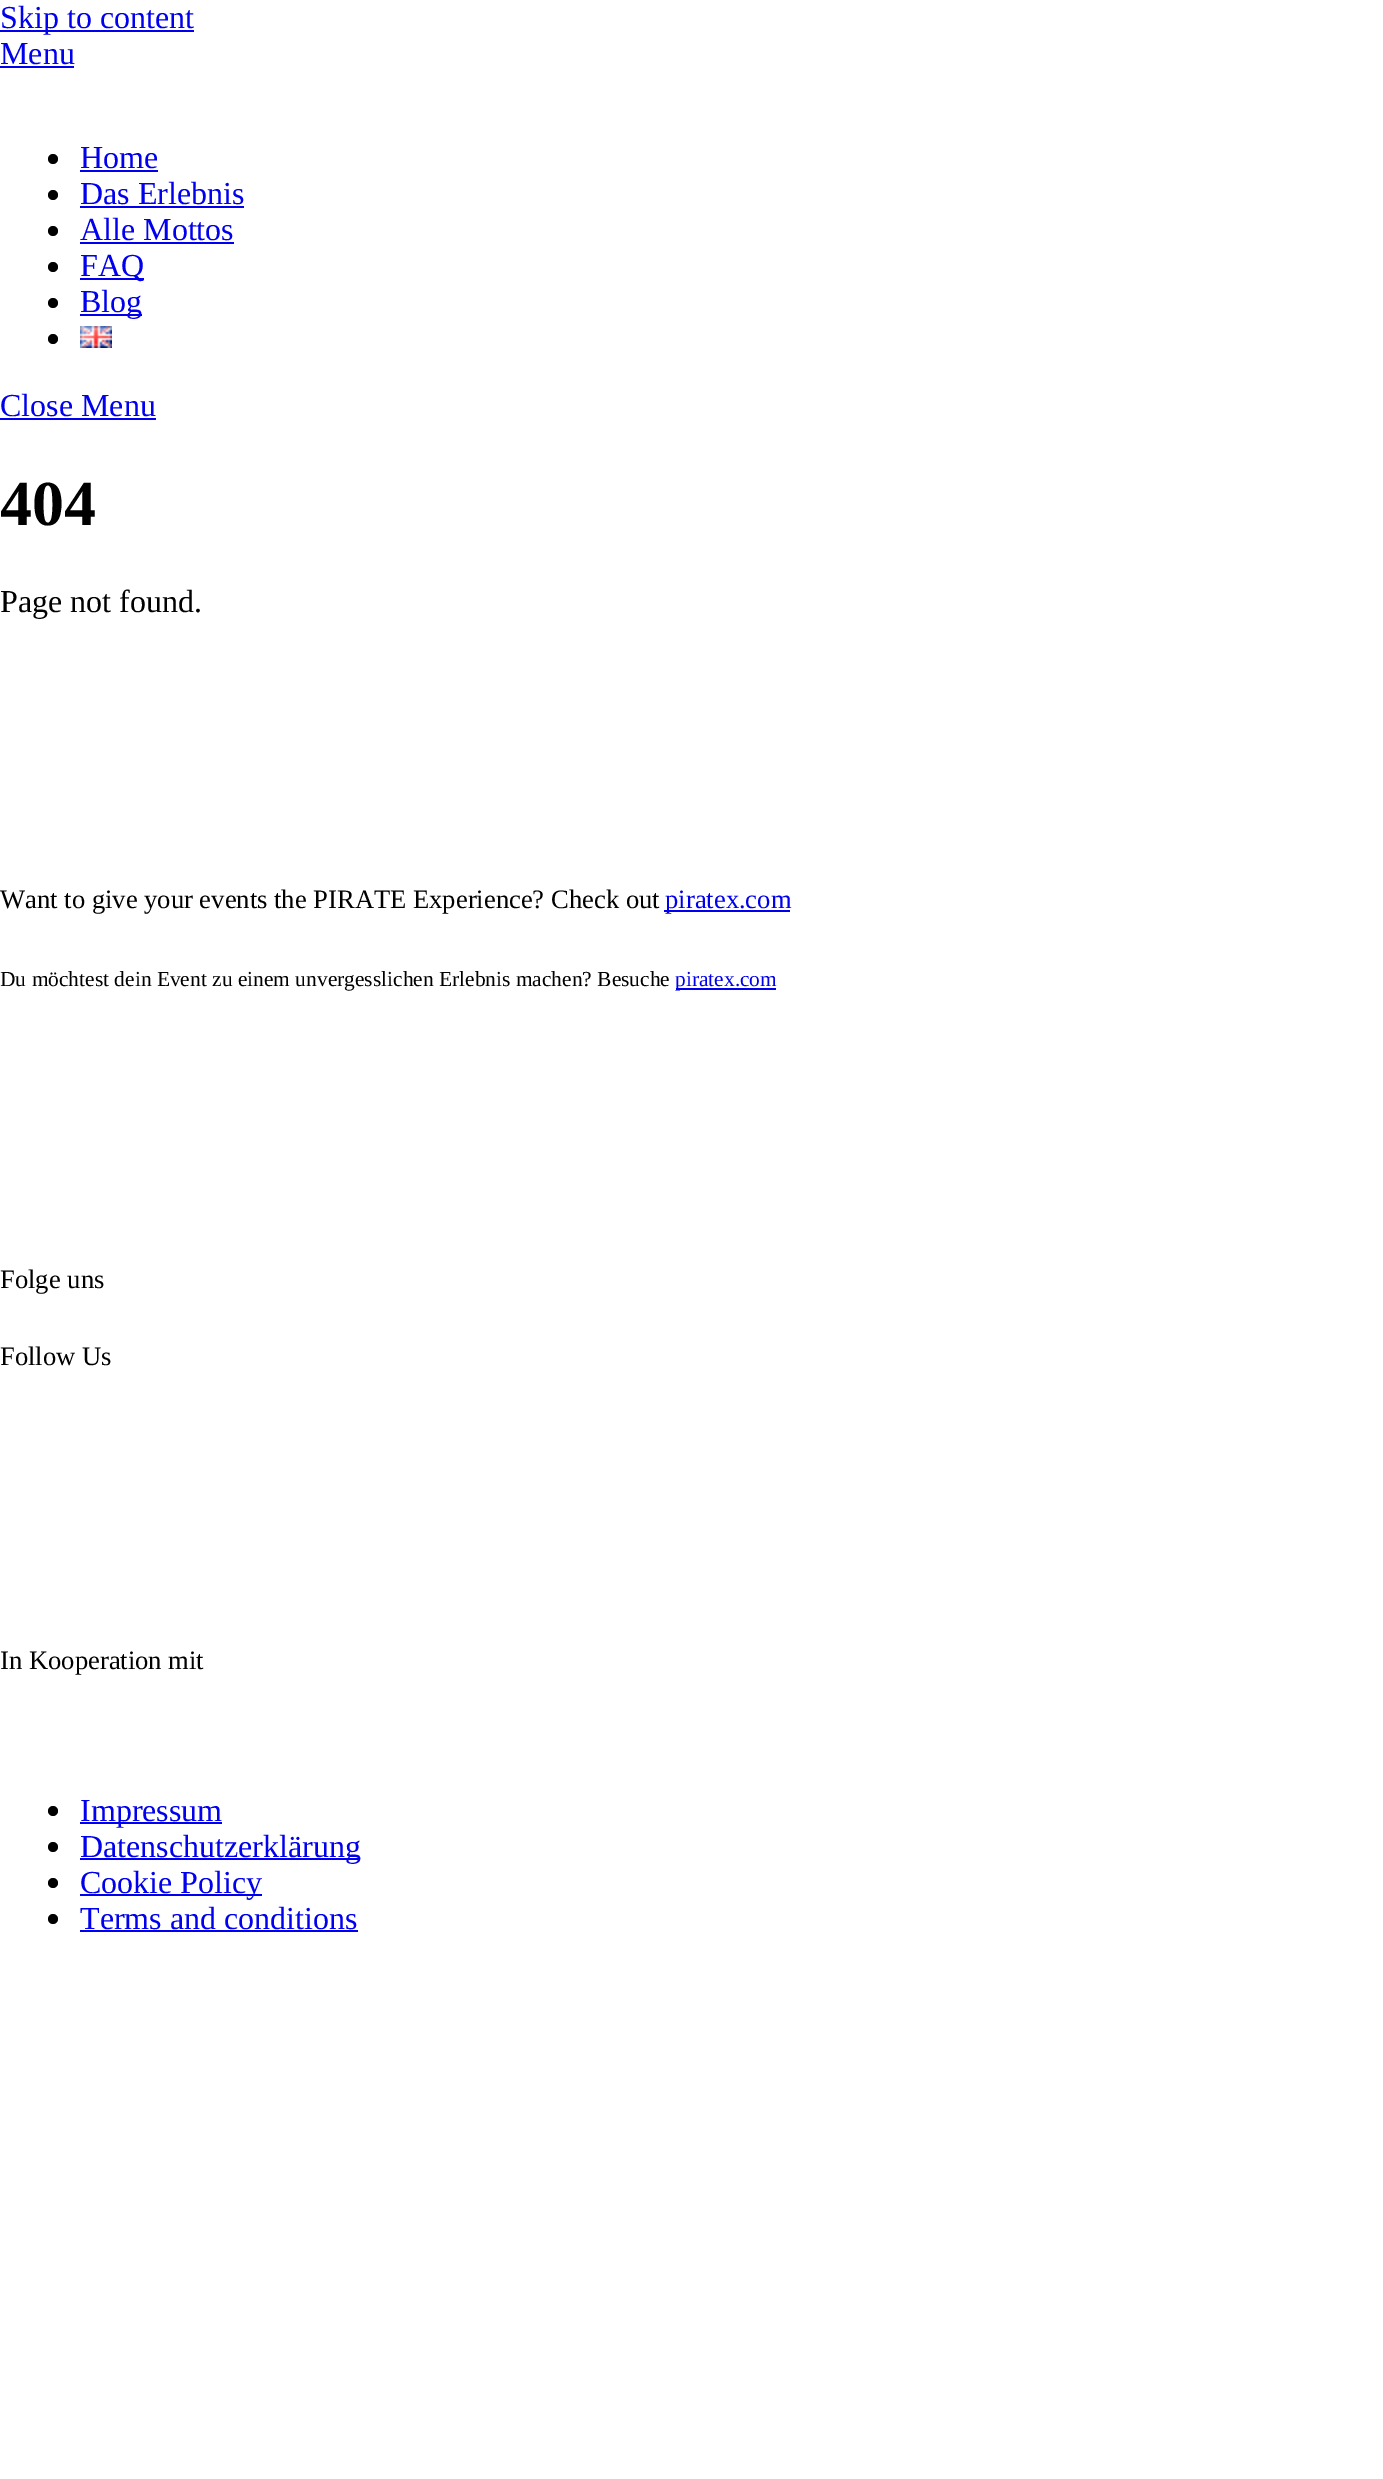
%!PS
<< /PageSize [1383 2479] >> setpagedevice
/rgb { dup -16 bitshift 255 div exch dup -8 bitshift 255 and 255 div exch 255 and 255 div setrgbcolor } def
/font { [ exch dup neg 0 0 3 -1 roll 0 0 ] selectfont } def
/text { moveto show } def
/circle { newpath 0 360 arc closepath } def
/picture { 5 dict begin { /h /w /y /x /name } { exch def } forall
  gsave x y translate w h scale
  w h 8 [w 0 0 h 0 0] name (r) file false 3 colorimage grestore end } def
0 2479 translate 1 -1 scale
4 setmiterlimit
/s1 { /LiberationSerif-Regular 32 font 16#0000EE rgb } def
/s2 { /LiberationSerif-Bold 64 font 16#000000 rgb } def
/s3 { /LiberationSerif-Regular 32 font 16#000000 rgb } def
/s4 { /LiberationSerif-Regular 26.6 font 16#000000 rgb } def
/s5 { /LiberationSerif-Regular 26.6 font 16#0000EE rgb } def
/s6 { /LiberationSerif-Regular 21.45 font 16#000000 rgb } def
/s7 { /LiberationSerif-Regular 21.45 font 16#0000EE rgb } def
16#FFFFFF rgb
0 0 1383 2479 rectfill
16#0000EE rgb
0 30 194 2 rectfill
s1
(Skip to content) 0 28 text
(Menu) 0 64 text
0 66 74 2 rectfill
16#000000 rgb
53 159 5 circle fill
s1
(Home) 80 168 text
80 170 78 2 rectfill
16#000000 rgb
53 195 5 circle fill
s1
(Das Erlebnis) 80 204 text
80 206 164 2 rectfill
16#000000 rgb
53 231 5 circle fill
s1
(Alle Mottos) 80 240 text
80 242 154 2 rectfill
16#000000 rgb
53 267 5 circle fill
16#0000EE rgb
80 278 64 2 rectfill
(FAQ) 80 276 text
16#000000 rgb
53 303 5 circle fill
16#0000EE rgb
80 314 62 2 rectfill
(Blog) 80 312 text
16#000000 rgb
53 339 5 circle fill
(pic1.raw) 80 326 32 22 picture
s1
(Close Menu) 0 416 text
0 418 156 2 rectfill
s2
(404) 0 525 text
s3
(Page not found.) 0 612 text
s4
(Want to give your events the PIRATE Experience? Check out) 0 908 text
16#0000EE rgb
664 910 126 2 rectfill
(piratex.com) 665 908 text
s6
(Du möchtest dein Event zu einem unvergesslichen Erlebnis machen? Besuche) 0 986 text
16#0000EE rgb
676 988 100 2 rectfill
(piratex.com) 675 986 text
s4
(Folge uns) 0 1288 text
(Follow Us) 0 1365 text
(In Kooperation mit) 0 1669 text
53 1811 5 circle fill
16#0000EE rgb
80 1822 142 2 rectfill
s1
(Impressum) 80 1821 text
16#000000 rgb
53 1847 5 circle fill
16#0000EE rgb
80 1858 280 2 rectfill
(Datenschutzerklärung) 80 1857 text
16#000000 rgb
53 1883 5 circle fill
16#0000EE rgb
80 1894 182 2 rectfill
(Cookie Policy) 80 1893 text
16#000000 rgb
53 1919 5 circle fill
s1
(Terms and conditions) 80 1929 text
80 1930 278 2 rectfill
showpage
